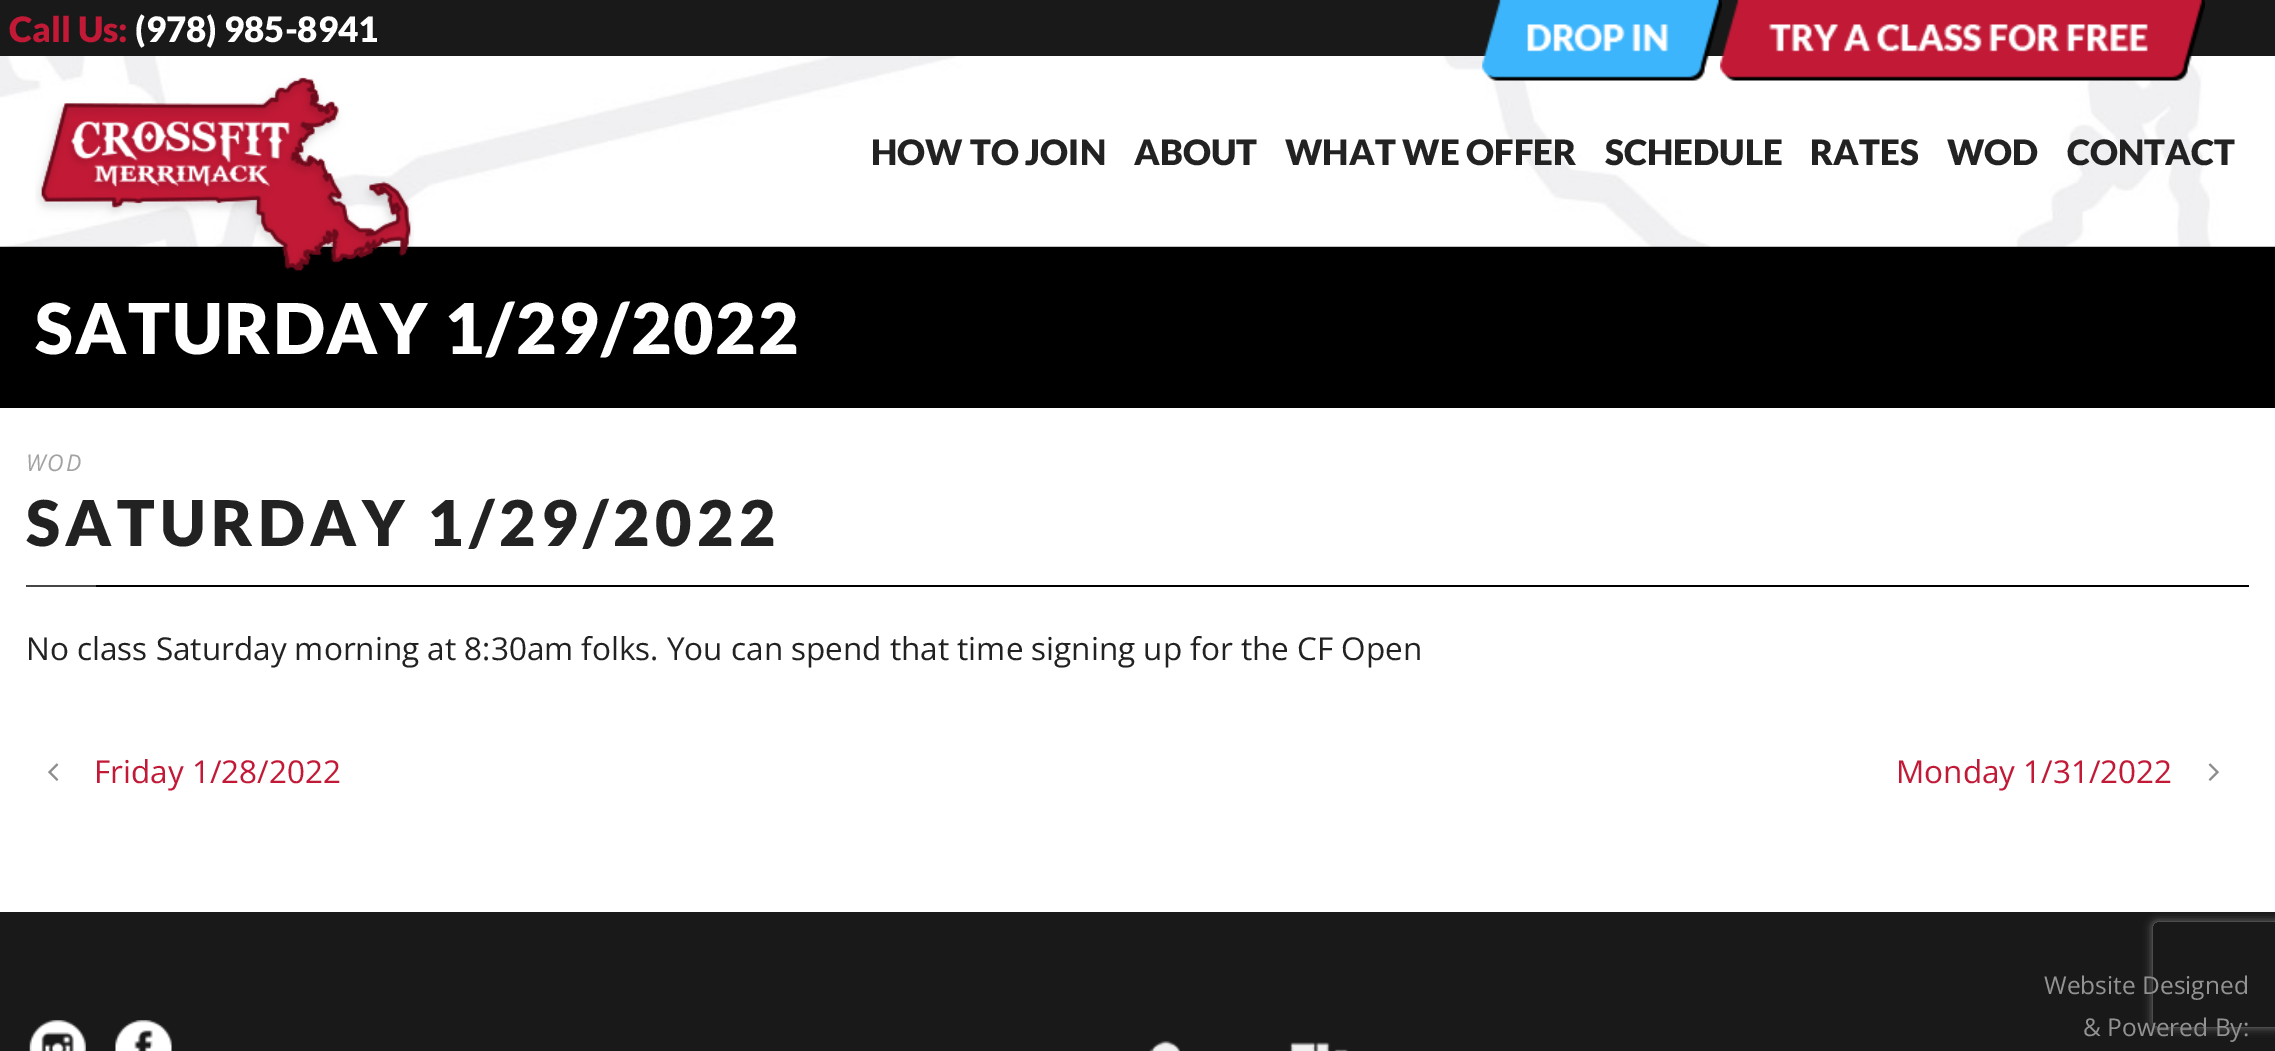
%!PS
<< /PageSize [2275 1051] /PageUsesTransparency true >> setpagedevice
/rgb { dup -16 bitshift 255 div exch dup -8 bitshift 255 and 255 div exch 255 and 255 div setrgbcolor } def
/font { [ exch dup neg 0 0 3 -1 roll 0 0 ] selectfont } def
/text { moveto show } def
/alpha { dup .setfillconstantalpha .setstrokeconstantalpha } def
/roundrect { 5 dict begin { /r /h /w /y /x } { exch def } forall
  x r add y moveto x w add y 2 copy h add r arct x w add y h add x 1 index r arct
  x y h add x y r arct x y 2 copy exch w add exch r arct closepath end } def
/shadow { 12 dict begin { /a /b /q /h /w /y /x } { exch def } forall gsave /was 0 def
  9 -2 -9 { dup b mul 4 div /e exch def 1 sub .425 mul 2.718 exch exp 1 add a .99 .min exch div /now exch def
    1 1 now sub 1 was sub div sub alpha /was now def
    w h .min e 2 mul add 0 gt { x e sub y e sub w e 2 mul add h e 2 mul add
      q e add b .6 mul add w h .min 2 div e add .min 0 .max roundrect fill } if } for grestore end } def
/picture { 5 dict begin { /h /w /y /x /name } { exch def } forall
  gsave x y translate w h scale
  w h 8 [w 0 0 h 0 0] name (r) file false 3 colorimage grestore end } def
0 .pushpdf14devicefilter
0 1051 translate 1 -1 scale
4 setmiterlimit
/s1 { /Lato-Black 35 font 16#C11936 rgb } def
/s2 { /Lato-Black 35 font 16#FFFFFF rgb } def
/s3 { /Lato-Black 35 font 16#222222 rgb } def
/s4 { /OpenSans-Regular 31.5 font 16#222222 rgb } def
/s5 { /OpenSans-Regular 31.5 font 16#C11936 rgb } def
/s6 { /OpenSans-Regular 24.5 font 16#939393 rgb } def
16#FFFFFF rgb
0 0 2275 1051 rectfill
16#191919 rgb
0 0 2275 56 rectfill
s1
(Call Us:) 9 42 text
s2
(\(978\) 985-8941) 135 42 text
16#000000 rgb
0 246 2275 162 rectfill
(pic3.raw) 0 56 2275 191 picture
(pic2.raw) 1720 0 485 81 picture
(pic1.raw) 1482 0 240 81 picture
(pic4.raw) 35 77 379 194 picture
s3
(HOW TO JOIN) 871 165 text
(ABOUT) 1134 165 text
(WHAT WE OFFER) 1285 165 text
(SCHEDULE) 1605 165 text
(RATES) 1810 165 text
(WOD) 1947 165 text
(CONTACT) 2067 165 text
/Lato-Black 70 font
16#FFFFFF rgb
35 354 moveto 1.75 0 (SATURDAY 1/29/2022) ashow
16#000000 rgb
96 585 2153 2 rectfill
/OpenSans-Italic 23 font
16#A3A3A3 rgb
26 471 moveto 1.75 0 (WOD) ashow
/Lato-Black 63 font
16#222222 rgb
26 546 moveto 5.25 0 (SATURDAY 1/29/2022) ashow
16#464646 rgb
26 585 70 2 rectfill
s4
(No class Saturday morning at 8:30am folks. You can spend that time signing up for the CF Open) 26 660 text
(pic5.raw) 48 763 11 18 picture
s5
(Friday 1/28/2022) 94 783 text
(Monday 1/31/2022) 1896 783 text
(pic6.raw) 2208 763 11 18 picture
16#191919 rgb
0 912 2275 139 rectfill
(pic7.raw) 29 1020 57 31 picture
(pic8.raw) 115 1020 57 31 picture
(pic9.raw) 1149 1040 199 11 picture
s6
(Website Designed) 2044 994 text
(& Powered By:) 2083 1036 text
gsave
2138 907 moveto 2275 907 lineto 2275 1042 lineto 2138 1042 lineto closepath 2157 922 moveto 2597 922 lineto 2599 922 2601 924 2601 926 curveto 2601 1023 lineto 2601 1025 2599 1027 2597 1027 curveto 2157 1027 lineto 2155 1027 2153 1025 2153 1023 curveto 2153 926 lineto 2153 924 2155 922 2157 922 curveto closepath eoclip newpath
16#808080 rgb
2153 922 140 105 4 4.5 1 shadow
grestore
.poppdf14devicefilter showpage
